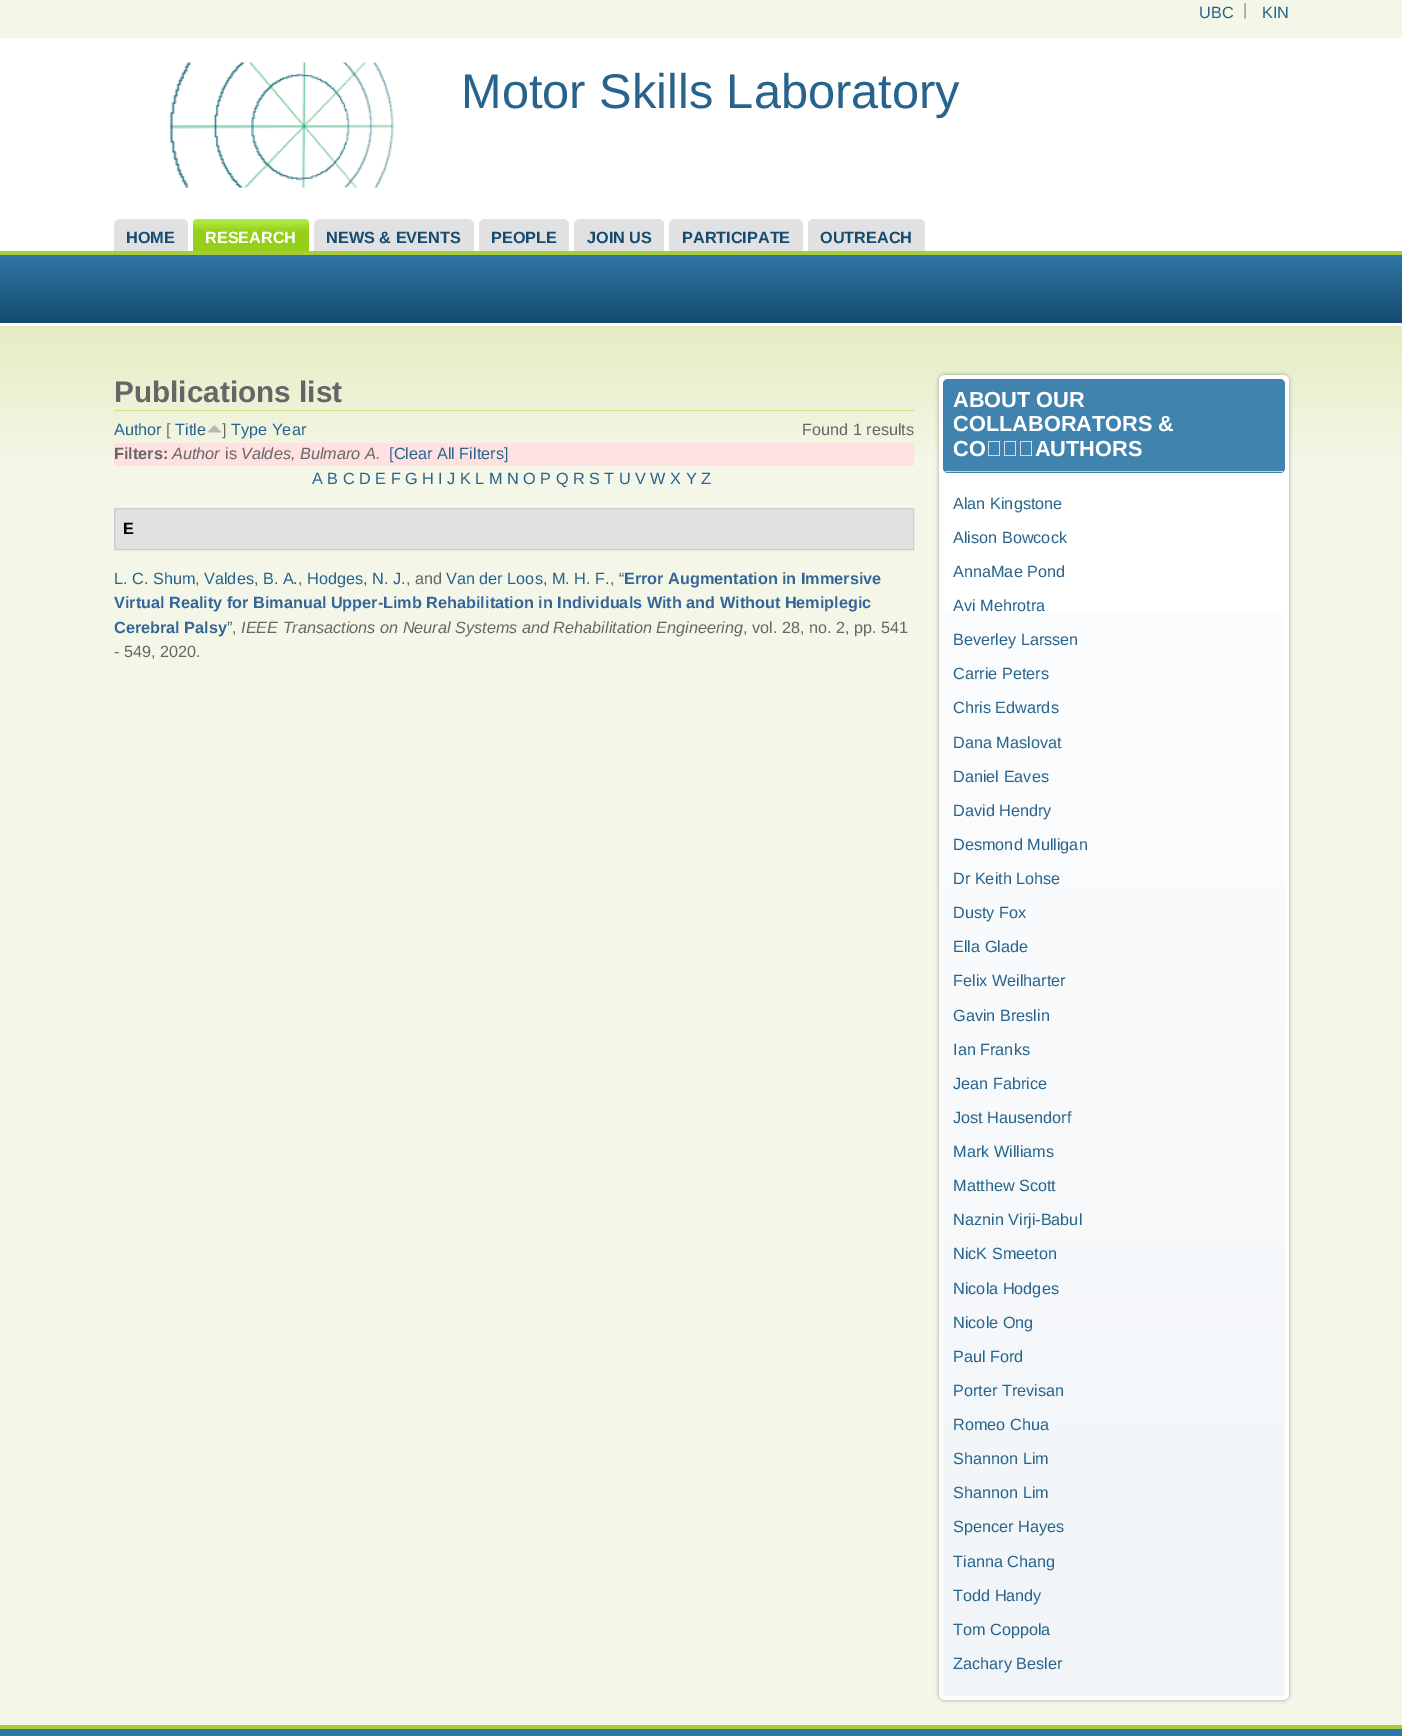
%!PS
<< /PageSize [1402 1736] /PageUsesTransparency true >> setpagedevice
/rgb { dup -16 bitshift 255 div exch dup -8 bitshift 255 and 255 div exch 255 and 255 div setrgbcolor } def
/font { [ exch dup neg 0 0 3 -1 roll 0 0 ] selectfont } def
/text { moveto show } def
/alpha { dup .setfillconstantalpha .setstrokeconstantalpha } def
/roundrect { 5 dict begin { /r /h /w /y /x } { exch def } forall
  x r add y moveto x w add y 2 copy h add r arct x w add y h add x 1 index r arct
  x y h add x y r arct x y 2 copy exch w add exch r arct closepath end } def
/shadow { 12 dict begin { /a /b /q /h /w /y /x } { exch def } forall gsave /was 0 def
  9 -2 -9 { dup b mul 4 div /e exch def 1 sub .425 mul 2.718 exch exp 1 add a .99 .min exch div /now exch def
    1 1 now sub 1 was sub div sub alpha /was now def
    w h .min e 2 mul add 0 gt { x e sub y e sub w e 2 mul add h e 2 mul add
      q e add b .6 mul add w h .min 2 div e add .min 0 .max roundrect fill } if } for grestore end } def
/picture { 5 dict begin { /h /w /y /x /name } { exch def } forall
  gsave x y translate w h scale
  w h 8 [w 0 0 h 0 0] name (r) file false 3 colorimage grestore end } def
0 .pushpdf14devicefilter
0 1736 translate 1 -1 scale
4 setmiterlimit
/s1 { /LiberationSans-Regular 16.25 font 16#27638C rgb } def
/s2 { /LiberationSans-Regular 16.25 font 16#888888 rgb } def
/s3 { /LiberationSans-Regular 48.75 font 16#27638C rgb } def
/s4 { /LiberationSans-Bold 16.25 font 16#154B70 rgb } def
/s5 { /LiberationSans-Bold 16.25 font 16#FFFFFF rgb } def
/s6 { /LiberationSans-Bold 29.75 font 16#666666 rgb } def
/s7 { /LiberationSans-Regular 16.25 font 16#666666 rgb } def
/s8 { /LiberationSans-Bold 16.25 font 16#666666 rgb } def
/s9 { /LiberationSans-Italic 16.25 font 16#666666 rgb } def
/s10 { /LiberationSans-Bold 16.25 font 16#000000 rgb } def
/s11 { /LiberationSans-Bold 16.25 font 16#336599 rgb } def
/s12 { /LiberationSans-Bold 21.75 font 16#FFFFFF rgb } def
16#F4F7E7 rgb
0 0 1402 1736 rectfill
s1
(UBC) 1199 18 text
s2
(|) 1243 15 text
s1
(KIN) 1262 18 text
16#FFFFFF rgb
0 38 1402 213 rectfill
(pic1.raw) 168 62 226 126 picture
s3
(Motor Skills Laboratory) 461 108 text
16#E1E1E1 rgb
120 219 moveto 182 219 lineto 185.5 219 188 221.5 188 225 curveto 188 251 lineto 114 251 lineto 114 225 lineto 114 221.5 116.5 219 120 219 curveto closepath fill
s4
(HOME) 126 243 text
gsave 199 219 moveto 303 219 lineto 306.5 219 309 221.5 309 225 curveto 309 251 lineto 193 251 lineto 193 225 lineto 193 221.5 195.5 219 199 219 curveto closepath clip newpath
<< /ShadingType 2 /ColorSpace /DeviceRGB /Coords [193 219 193 251] /Extend [true true] /Function << /FunctionType 3 /Domain [0 1] /Functions [<< /FunctionType 2 /Domain [0 1] /C0 [0.71 0.933 0.282] /C1 [0.584 0.812 0.102] /N 1 >> << /FunctionType 2 /Domain [0 1] /C0 [0.584 0.812 0.102] /C1 [0.584 0.812 0.102] /N 1 >>] /Bounds [0.4] /Encode [0 1 0 1] >> >> shfill grestore
s5
(RESEARCH) 205 243 text
16#E1E1E1 rgb
320 219 moveto 468 219 lineto 471.5 219 474 221.5 474 225 curveto 474 251 lineto 314 251 lineto 314 225 lineto 314 221.5 316.5 219 320 219 curveto closepath fill
s4
(NEWS & EVENTS) 326 243 text
16#E1E1E1 rgb
485 219 moveto 563 219 lineto 566.5 219 569 221.5 569 225 curveto 569 251 lineto 479 251 lineto 479 225 lineto 479 221.5 481.5 219 485 219 curveto closepath fill
s4
(PEOPLE) 491 243 text
16#E1E1E1 rgb
580 219 moveto 658 219 lineto 661.5 219 664 221.5 664 225 curveto 664 251 lineto 574 251 lineto 574 225 lineto 574 221.5 576.5 219 580 219 curveto closepath fill
s4
(JOIN US) 587 243 text
16#E1E1E1 rgb
675 219 moveto 797 219 lineto 800.5 219 803 221.5 803 225 curveto 803 251 lineto 669 251 lineto 669 225 lineto 669 221.5 671.5 219 675 219 curveto closepath fill
s4
(PARTICIPATE) 682 243 text
16#E1E1E1 rgb
814 219 moveto 919 219 lineto 922.5 219 925 221.5 925 225 curveto 925 251 lineto 808 251 lineto 808 225 lineto 808 221.5 810.5 219 814 219 curveto closepath fill
s4
(OUTREACH) 820 243 text
gsave 0 255 moveto 1402 255 lineto 1402 323 lineto 0 323 lineto closepath clip newpath
<< /ShadingType 2 /ColorSpace /DeviceRGB /Coords [0 255 0 323] /Extend [true true] /Function << /FunctionType 2 /Domain [0 1] /C0 [0.184 0.463 0.647] /C1 [0.078 0.29 0.431] /N 1 >> >> shfill grestore
16#A7CE38 rgb
0 251 1402 4 rectfill
gsave 0 326 moveto 1402 326 lineto 1402 456 lineto 0 456 lineto closepath clip newpath
<< /ShadingType 2 /ColorSpace /DeviceRGB /Coords [0 325 0 1725] /Extend [true true] /Function << /FunctionType 3 /Domain [0 1] /Functions [<< /FunctionType 2 /Domain [0 1] /C0 [0.894 0.929 0.761] /C1 [0.961 0.969 0.906] /N 1 >> << /FunctionType 2 /Domain [0 1] /C0 [0.961 0.969 0.906] /C1 [0.961 0.969 0.906] /N 1 >>] /Bounds [0.1] /Encode [0 1 0 1] >> >> shfill grestore
16#FFFFFF rgb
0 323 1402 3 rectfill
16#D6DD89 rgb
114 410 800 1 rectfill
s6
(Publications list) 114 402 text
s1
(Author) 114 435 text
s7
([) 166 435 text
s1
(Title) 175 435 text
(pic2.raw) 207 425 15 8 picture
s7
(]) 222 435 text
s1
(Type Year) 231 435 text
s7
(Found 1 results) 802 435 text
16#FFE1E1 rgb
114 443 800 23 rectfill
s8
(Filters:) 114 459 text
s9
(Author) 172 459 text
s7
(is) 225 459 text
s9
(Valdes, Bulmaro A.) 241 459 text
s1
([Clear All Filters]) 389 459 text
(A B C D E F G H I J K L M N O P Q R S T U V W X Y Z) 312 484 text
16#E1E1E1 rgb
114.5 508.5 moveto 913.5 508.5 lineto 913.5 549.5 lineto 114.5 549.5 lineto closepath gsave fill grestore
16#CCCCCC rgb
stroke
s10
(E) 123 534 text
s1
(L. C. Shum) 114 584 text
s7
(,) 195 584 text
s1
(Valdes, B. A.) 204 584 text
s7
(,) 298 584 text
s1
(Hodges, N. J.) 307 584 text
s7
(, and) 406 584 text
s1
(Van der Loos, M. H. F.) 446 584 text
s7
(,) 610 584 text
s1
(“) 619 584 text
s11
(Error Augmentation in Immersive) 624 584 text
(Virtual Reality for Bimanual Upper-Limb Rehabilitation in Individuals With and Without Hemiplegic) 114 608 text
(Cerebral Palsy) 114 633 text
s1
(”) 227 633 text
s7
(,) 232 633 text
s9
(IEEE Transactions on Neural Systems and Rehabilitation Engineering) 241 633 text
s7
(, vol. 28, no. 2, pp. 541) 743 633 text
(- 549, 2020.) 114 657 text
16#999999 rgb
939 375 350 1325 6 2 1 shadow
16#FFFFFF rgb
939 375 350 1325 6 roundrect fill
gsave 943 614 moveto 1285 614 lineto 1285 1696 lineto 943 1696 lineto closepath clip newpath
<< /ShadingType 2 /ColorSpace /DeviceRGB /Coords [943 379 943 1696] /Extend [true true] /Function << /FunctionType 2 /Domain [0 1] /C0 [1 1 1] /C1 [0.945 0.961 0.973] /N 1 >> >> shfill grestore
16#4183AF rgb
943 379 342 94 5 roundrect fill
16#D6DD89 rgb
945 471 338 1 rectfill
s12
(ABOUT OUR) 953 407 text
(COLLABORATORS &) 953 431 text
(CO‑AUTHORS) 953 456 text
s1
(Alan Kingstone) 953 509 text
(Alison Bowcock) 953 543 text
(AnnaMae Pond) 953 577 text
(Avi Mehrotra) 953 611 text
(Beverley Larssen) 953 645 text
(Carrie Peters) 953 679 text
(Chris Edwards) 953 713 text
(Dana Maslovat) 953 748 text
(Daniel Eaves) 953 782 text
(David Hendry) 953 816 text
(Desmond Mulligan) 953 850 text
(Dr Keith Lohse) 953 884 text
(Dusty Fox) 953 918 text
(Ella Glade) 953 952 text
(Felix Weilharter) 953 986 text
(Gavin Breslin) 953 1021 text
(Ian Franks) 953 1055 text
(Jean Fabrice) 953 1089 text
(Jost Hausendorf) 953 1123 text
(Mark Williams) 953 1157 text
(Matthew Scott) 953 1191 text
(Naznin Virji-Babul) 953 1225 text
(NicK Smeeton) 953 1259 text
(Nicola Hodges) 953 1294 text
(Nicole Ong) 953 1328 text
(Paul Ford) 953 1362 text
(Porter Trevisan) 953 1396 text
(Romeo Chua) 953 1430 text
(Shannon Lim) 953 1464 text
(Shannon Lim) 953 1498 text
(Spencer Hayes) 953 1532 text
(Tianna Chang) 953 1567 text
(Todd Handy) 953 1601 text
(Tom Coppola) 953 1635 text
(Zachary Besler) 953 1669 text
16#2F76A5 rgb
0 1729 1402 7 rectfill
16#A7CE38 rgb
0 1725 1402 4 rectfill
.poppdf14devicefilter showpage
